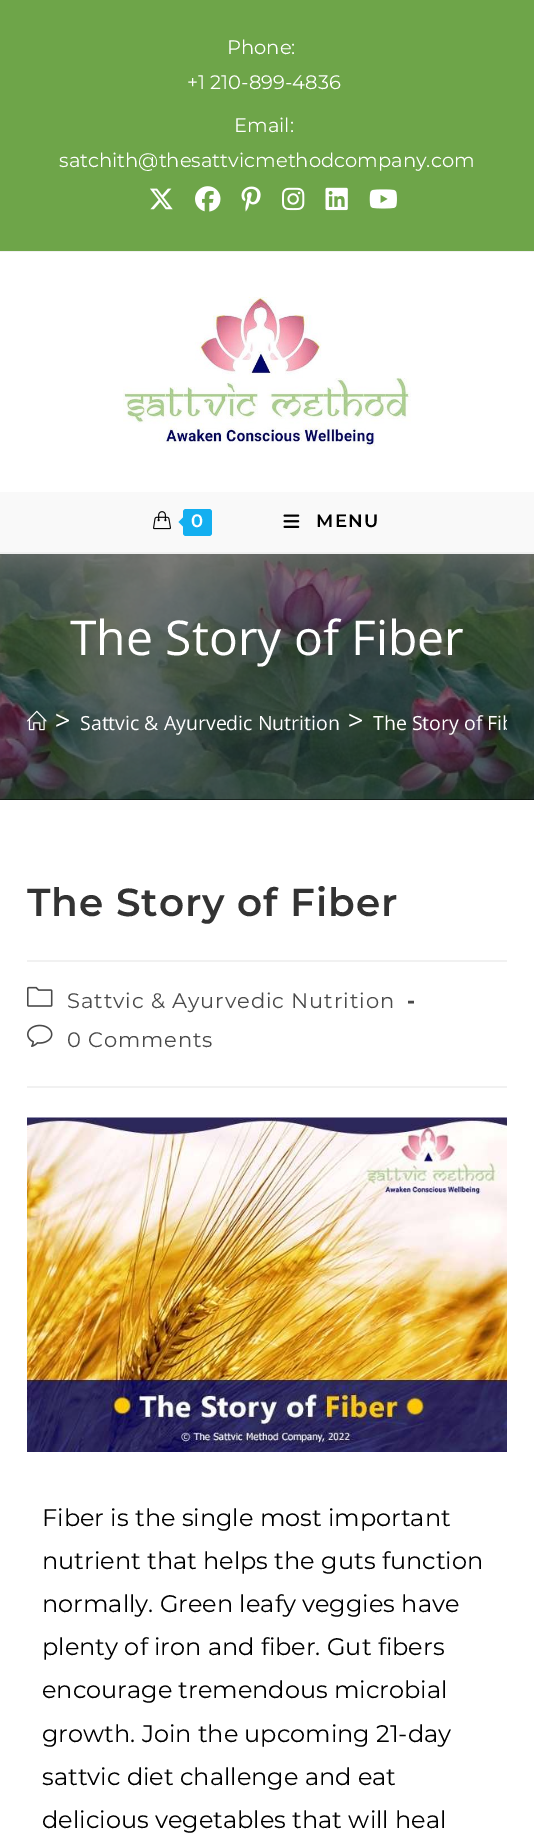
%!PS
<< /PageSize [534 1844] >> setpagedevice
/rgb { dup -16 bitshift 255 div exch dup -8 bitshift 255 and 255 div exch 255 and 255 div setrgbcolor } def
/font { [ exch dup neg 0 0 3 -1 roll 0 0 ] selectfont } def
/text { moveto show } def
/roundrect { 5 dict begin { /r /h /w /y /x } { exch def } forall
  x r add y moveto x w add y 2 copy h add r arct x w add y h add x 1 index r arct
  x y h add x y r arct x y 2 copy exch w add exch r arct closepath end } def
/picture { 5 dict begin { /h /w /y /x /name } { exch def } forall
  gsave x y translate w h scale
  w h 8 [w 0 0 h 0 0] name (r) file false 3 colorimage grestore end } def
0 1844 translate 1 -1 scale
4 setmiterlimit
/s1 { /Montserrat-Regular 19.5 font 16#FFFFFF rgb } def
/s2 { /OpenSans-Regular 48 font 16#FFFFFF rgb } def
/s3 { /OpenSans-Regular 27 font 16#FFFFFF rgb } def
/s4 { /OpenSans-Regular 19.5 font 16#FFFFFF rgb } def
/s5 { /Montserrat-Regular 24 font 16#000000 rgb } def
16#FFFFFF rgb
0 0 534 1844 rectfill
16#6EA549 rgb
0 0 534 251 rectfill
16#F1F1F1 rgb
0 251 534 1 rectfill
s1
(Phone:) 227 54 text
(+1 210-899-4836) 187 89 text
(Email:) 234 132 text
(satchith@thesattvicmethodcompany.com) 59 167 text
(pic1.raw) 150 188 23 22 picture
(pic2.raw) 195 186 26 26 picture
(pic3.raw) 241 186 20 26 picture
(pic4.raw) 282 187 23 24 picture
(pic5.raw) 325 187 23 24 picture
(pic6.raw) 369 189 28 20 picture
16#F1F1F1 rgb
0 552 534 2 rectfill
(pic7.raw) 123 297 288 150 picture
16#F9F9F9 rgb
0 492 534 60 rectfill
(pic8.raw) 153 511 18 19 picture
16#13AFF0 rgb
183 509 29 27 3 roundrect fill
186 514.5 moveto 186 529.5 lineto 178.5 522 lineto closepath fill
/Montserrat-SemiBold 18 font
16#FFFFFF rgb
191 527 moveto 1.5 0 (0) ashow
(pic9.raw) 283 514 17 14 picture
16#000000 rgb
316 527 moveto 1.5 0 (MENU) ashow
0 799 534 1 rectfill
(pic10.raw) 0 554 534 246 picture
s2
(The Story of Fiber) 70 655 text
(pic11.raw) 27 710 20 21 picture
s3
(>) 55 730 text
s4
(Sattvic & Ayurvedic Nutrition) 80 730 text
s3
(>) 348 730 text
gsave
27 701 480 48 rectclip
s4
(The Story of Fib) 373 730 text
grestore
16#F1F1F1 rgb
27 960 480 2 rectfill
/Montserrat-SemiBold 39 font
16#333333 rgb
27 916 moveto 0.9 0 (The Story of Fiber) ashow
16#F1F1F1 rgb
27 1086 480 2 rectfill
(pic12.raw) 27 986 26 21 picture
/Montserrat-Regular 21 font
16#4A4A4A rgb
67 1008 moveto 0.9 0 (Sattvic & Ayurvedic Nutrition) ashow
/Montserrat-Bold 21 font
407 1008 moveto 0.9 0 (-) ashow
(pic13.raw) 27 1024 26 23 picture
/Montserrat-Regular 21 font
67 1047 moveto 0.9 0 (0 Comments) ashow
(pic14.raw) 27 1117 480 335 picture
s5
(Fiber is the single most important) 42 1526 text
(nutrient that helps the guts function) 42 1569 text
(normally. Green leafy veggies have) 42 1612 text
(plenty of iron and fiber. Gut fibers) 42 1655 text
(encourage tremendous microbial) 42 1698 text
(growth. Join the upcoming 21-day) 42 1742 text
(sattvic diet challenge and eat) 42 1785 text
(delicious vegetables that will heal) 42 1828 text
showpage
